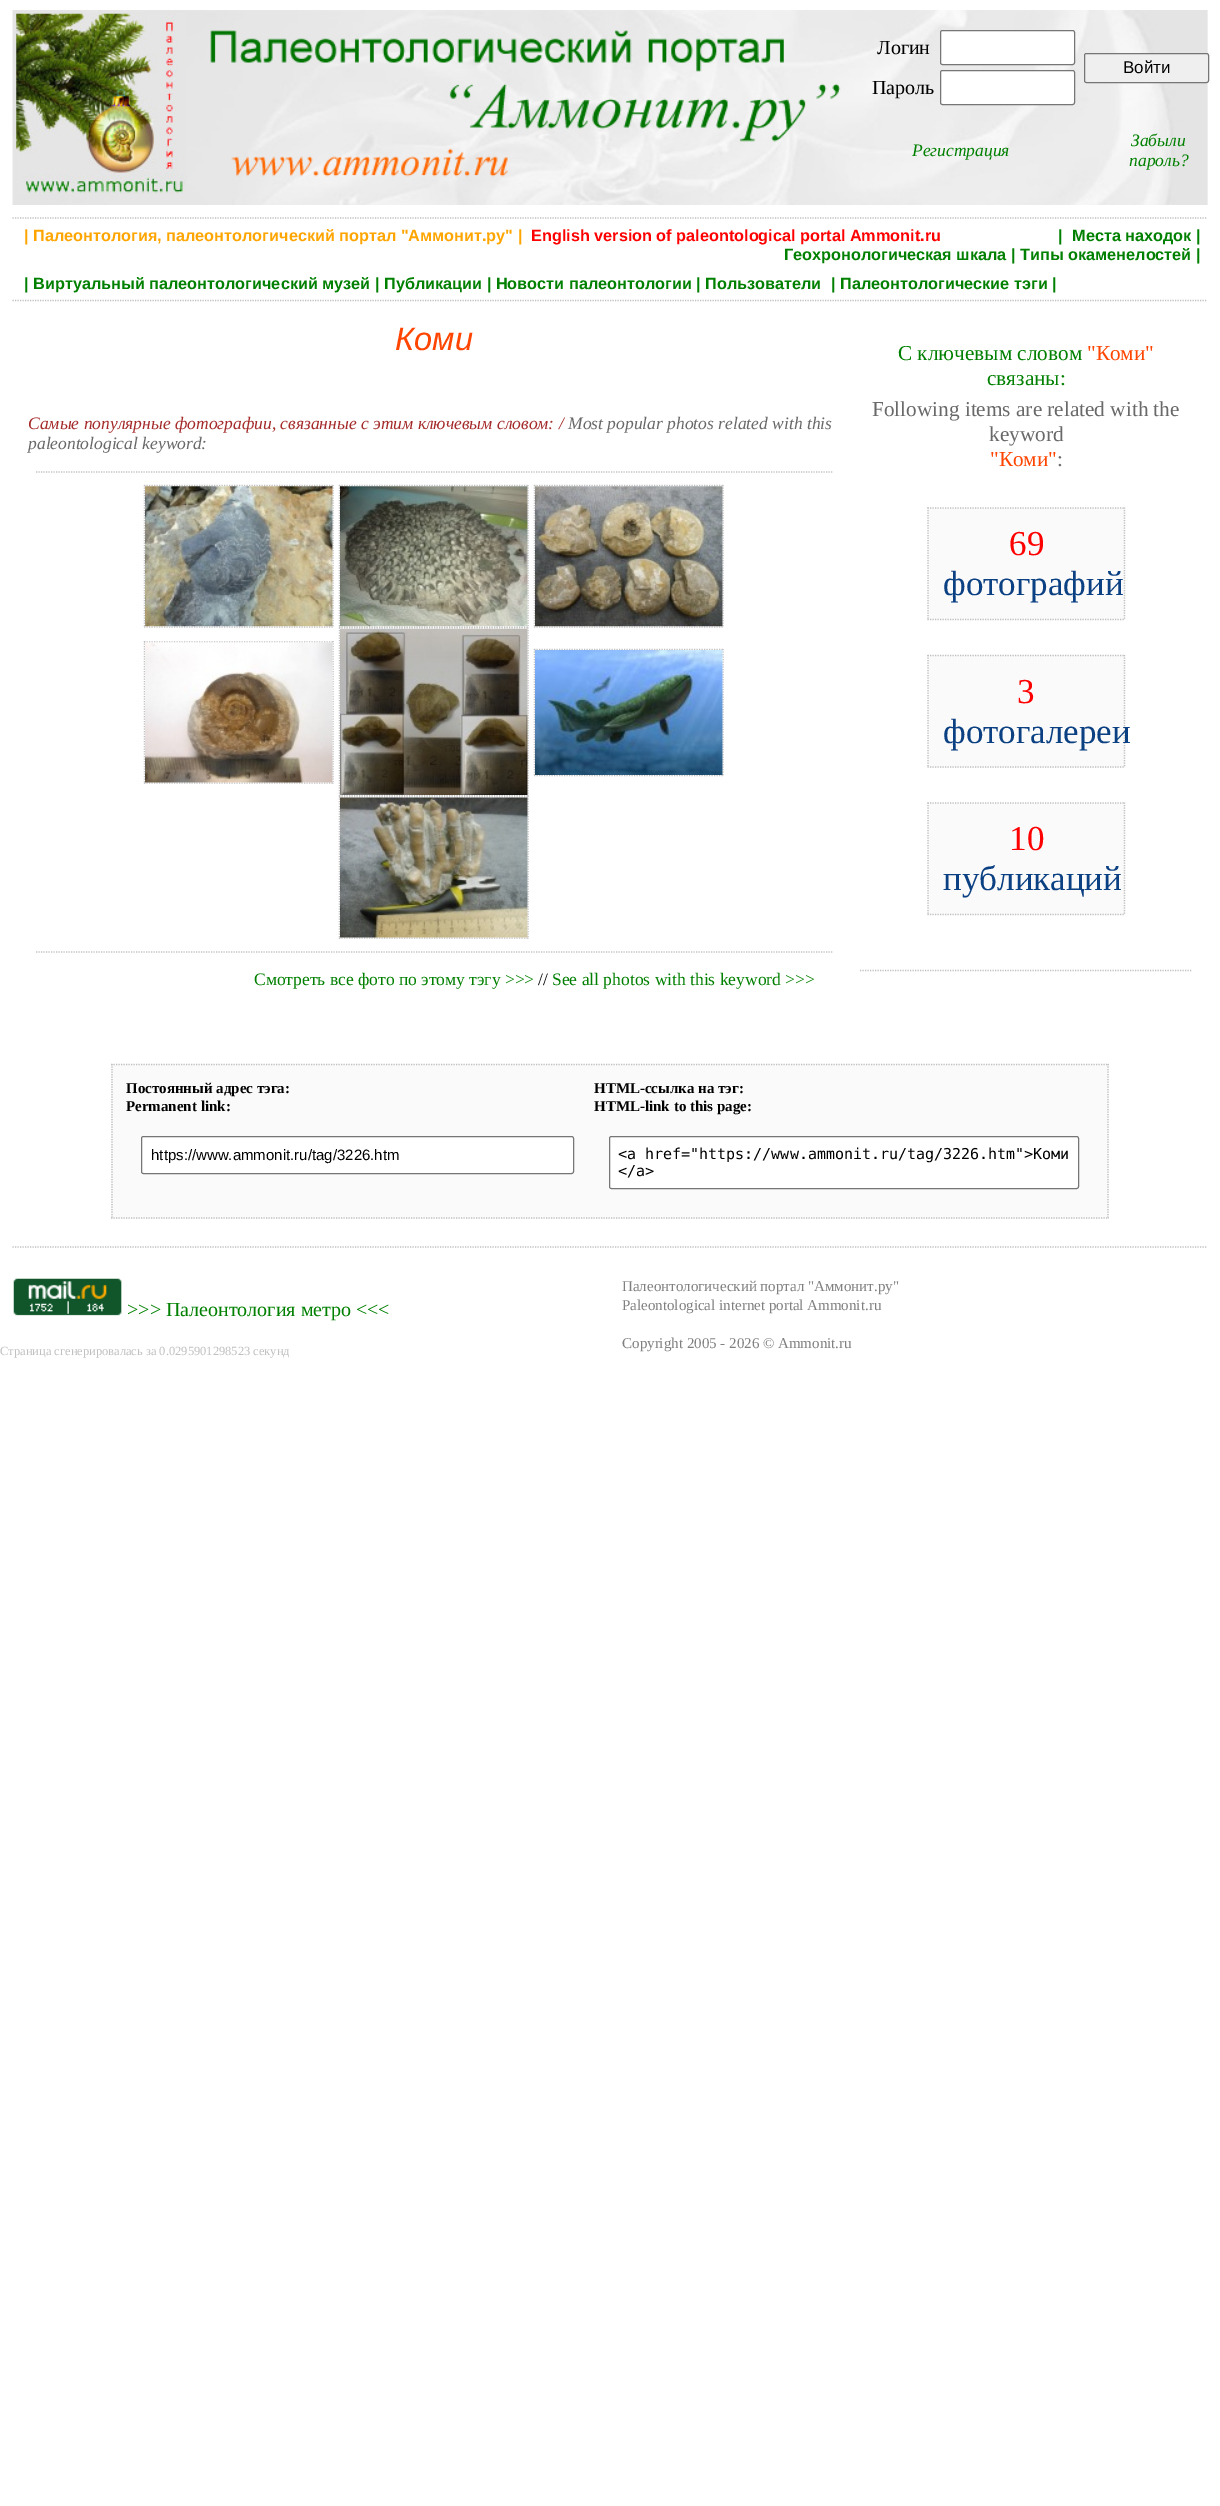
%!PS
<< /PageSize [1220 2506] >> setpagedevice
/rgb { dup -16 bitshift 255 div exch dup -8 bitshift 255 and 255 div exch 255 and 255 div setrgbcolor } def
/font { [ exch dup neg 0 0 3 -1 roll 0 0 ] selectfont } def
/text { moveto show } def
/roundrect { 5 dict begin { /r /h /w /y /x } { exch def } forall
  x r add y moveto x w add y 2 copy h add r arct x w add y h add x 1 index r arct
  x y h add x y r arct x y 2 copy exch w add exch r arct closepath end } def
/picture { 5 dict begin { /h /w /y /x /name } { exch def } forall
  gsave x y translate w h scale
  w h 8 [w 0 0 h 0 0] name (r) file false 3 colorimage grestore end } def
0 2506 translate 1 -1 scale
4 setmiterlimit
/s1 { /LiberationSerif-Regular 20 font 16#000000 rgb } def
/s2 { /LiberationSans-Regular 17 font 16#000000 rgb } def
/s3 { /LiberationSerif-Italic 17.5 font 16#008000 rgb } def
/s4 { /LiberationSans-Bold 16.25 font 16#FFA500 rgb } def
/s5 { /LiberationSans-Bold 16.25 font 16#FF0000 rgb } def
/s6 { /LiberationSans-Bold 16.25 font 16#008000 rgb } def
/s7 { /LiberationSans-Italic 32.5 font 16#FF4500 rgb } def
/s8 { /LiberationSerif-Italic 17.5 font 16#A52A2A rgb } def
/s9 { /LiberationSerif-Italic 17.5 font 16#696969 rgb } def
/s10 { /LiberationSerif-Regular 17.5 font 16#008000 rgb } def
/s11 { /LiberationSerif-Regular 17.5 font 16#000000 rgb } def
/s12 { /LiberationSerif-Regular 21.25 font 16#008000 rgb } def
/s13 { /LiberationSerif-Regular 21.25 font 16#FF4500 rgb } def
/s14 { /LiberationSerif-Regular 21.25 font 16#696969 rgb } def
/s15 { /LiberationSerif-Regular 35 font 16#FF0000 rgb } def
/s16 { /LiberationSerif-Regular 35 font 16#0B4082 rgb } def
/s17 { /LiberationSerif-Bold 15 font 16#000000 rgb } def
/s18 { /LiberationSans-Regular 15 font 16#000000 rgb } def
/s19 { /DejaVuSansMono-Regular 15 font 16#000000 rgb } def
/s20 { /LiberationSerif-Regular 20 font 16#008000 rgb } def
/s21 { /LiberationSerif-Regular 15 font 16#808080 rgb } def
/s22 { /LiberationSerif-Regular 12.5 font 16#C0C0C0 rgb } def
16#FFFFFF rgb
0 0 1220 2506 rectfill
16#F7F7F7 rgb
1207 10 1 195 rectfill
(pic1.raw) 12 10 1196 195 picture
(pic2.raw) 16 13 170 181 picture
(pic3.raw) 210 30 631 147 picture
s1
(Логин) 877 54 text
16#FFFFFF rgb
940.5 30.5 134 34 2 roundrect gsave fill grestore
16#767676 rgb
stroke
s1
(Пароль) 872 94 text
16#FFFFFF rgb
940.5 70.5 134 34 2 roundrect gsave fill grestore
16#767676 rgb
stroke
16#EFEFEF rgb
1084.5 53.5 124 29 2 roundrect gsave fill grestore
16#767676 rgb
stroke
s2
(Войти) 1123 73 text
s3
(Регистрация) 912 156 text
(Забыли) 1131 146 text
(пароль?) 1129 166 text
16#C0C0C0 rgb
1.2 setlinewidth
[1.25 1.25] 0 setdash
12.5 218 moveto 1207.5 218 lineto stroke
12.5 300.5 moveto 1207.5 300.5 lineto stroke
s4
(| Палеонтология, палеонтологический портал "Аммонит.ру" |) 24 241 text
s5
(English version of paleontological portal Ammonit.ru) 531 241 text
s6
(|) 1058 241 text
(Места находок |) 1072 241 text
(Геохронологическая шкала | Типы окаменелостей |) 784 260 text
(| Виртуальный палеонтологический музей | Публикации | Новости палеонтологии | Пользователи) 24 289 text
(| Палеонтологические тэги |) 831 289 text
s7
(Коми) 395 350 text
s8
(Самые популярные фотографии, связанные с этим ключевым словом: /) 28 429 text
s9
(Most popular photos related with this) 568 429 text
(paleontological keyword:) 28 449 text
16#C0C0C0 rgb
36 472 moveto 832.5 472 lineto stroke
36 952 moveto 832.5 952 lineto stroke
144 485.5 moveto 334 485.5 lineto stroke
339 485.5 moveto 529 485.5 lineto stroke
534 485.5 moveto 724 485.5 lineto stroke
333 485 moveto 333 627.5 lineto stroke
144 627 moveto 334 627 lineto stroke
144.5 485 moveto 144.5 627.5 lineto stroke
528 485 moveto 528 627.5 lineto stroke
339 627 moveto 529 627 lineto stroke
339.5 485 moveto 339.5 627.5 lineto stroke
723 485 moveto 723 627.5 lineto stroke
534 627 moveto 724 627 lineto stroke
534.5 485 moveto 534.5 627.5 lineto stroke
(pic4.raw) 145 486 188 141 picture
(pic5.raw) 340 486 188 141 picture
(pic6.raw) 535 486 188 141 picture
339 628 moveto 529 628 lineto stroke
528 627.5 moveto 528 796 lineto stroke
339 795.5 moveto 529 795.5 lineto stroke
339.5 627.5 moveto 339.5 796 lineto stroke
144 642 moveto 334 642 lineto stroke
333 641 moveto 333 784 lineto stroke
144 783 moveto 334 783 lineto stroke
144.5 641 moveto 144.5 784 lineto stroke
(pic7.raw) 340 628 188 167 picture
(pic8.raw) 145 642 188 141 picture
534 649.5 moveto 724 649.5 lineto stroke
723 649 moveto 723 776 lineto stroke
534 775.5 moveto 724 775.5 lineto stroke
534.5 649 moveto 534.5 776 lineto stroke
(pic9.raw) 535 650 188 125 picture
339 797 moveto 529 797 lineto stroke
528 796 moveto 528 939 lineto stroke
339 938 moveto 529 938 lineto stroke
339.5 796 moveto 339.5 939 lineto stroke
(pic10.raw) 340 797 188 141 picture
s10
(Смотреть все фото по этому тэгу >>>) 254 985 text
s11
(//) 538 985 text
s10
(See all photos with this keyword >>>) 552 985 text
16#C0C0C0 rgb
860 970.5 moveto 1192.5 970.5 lineto stroke
s12
(С ключевым словом) 898 360 text
s13
("Коми") 1087 360 text
s12
(связаны:) 987 385 text
s14
(Following items are related with the) 872 416 text
(keyword) 989 441 text
s13
("Коми") 990 466 text
s14
(:) 1057 466 text
16#FAFAFA rgb
928 508 197 112 rectfill
16#C0C0C0 rgb
927.5 508 moveto 1125 508 lineto stroke
1124.5 507.5 moveto 1124.5 620 lineto stroke
927.5 619.5 moveto 1125 619.5 lineto stroke
928 507.5 moveto 928 620 lineto stroke
s15
(69) 1009 555 text
s16
(фотографий) 943 595 text
16#FAFAFA rgb
928 655 197 113 rectfill
16#C0C0C0 rgb
927.5 655.5 moveto 1125 655.5 lineto stroke
1124.5 655 moveto 1124.5 767.5 lineto stroke
927.5 767 moveto 1125 767 lineto stroke
928 655 moveto 928 767.5 lineto stroke
s15
(3) 1017 703 text
s16
(фотогалереи) 943 743 text
16#FAFAFA rgb
928 803 197 112 rectfill
16#C0C0C0 rgb
927.5 803 moveto 1125 803 lineto stroke
1124.5 802.5 moveto 1124.5 915 lineto stroke
927.5 914.5 moveto 1125 914.5 lineto stroke
928 802.5 moveto 928 915 lineto stroke
s15
(10) 1009 850 text
s16
(публикаций) 943 890 text
16#FAFAFA rgb
111 1064 998 155 rectfill
16#C0C0C0 rgb
111 1064.5 moveto 1109 1064.5 lineto stroke
1108 1064 moveto 1108 1219 lineto stroke
111 1218 moveto 1109 1218 lineto stroke
112 1064 moveto 112 1219 lineto stroke
s17
(Постоянный адрес тэга:) 126 1093 text
(Permanent link:) 126 1111 text
(HTML-ссылка на тэг:) 594 1093 text
(HTML-link to this page:) 594 1111 text
16#FFFFFF rgb
141.5 1136.5 432 37 2 roundrect gsave fill grestore
16#767676 rgb
1 setlinewidth
[] 0 setdash
stroke
s18
(https://www.ammonit.ru/tag/3226.htm) 151 1160 text
16#FFFFFF rgb
609.5 1136.5 469 52 2 roundrect gsave fill grestore
16#767676 rgb
stroke
s19
(<a href="https://www.ammonit.ru/tag/3226.htm">Коми) 618 1159 text
(</a>) 618 1176 text
16#C0C0C0 rgb
1.2 setlinewidth
[1.25 1.25] 0 setdash
12.5 1247 moveto 1207.5 1247 lineto stroke
(pic11.raw) 13 1278 109 38 picture
s20
(>>> Палеонтология метро <<<) 127 1316 text
s21
(Палеонтологический портал "Аммонит.ру") 622 1291 text
(Paleontological internet portal Ammonit.ru) 622 1310 text
(Copyright 2005 - 2026 © Ammonit.ru) 622 1348 text
s22
(Страница сгенерировалась за 0.0295901298523 секунд) 0 1355 text
showpage
